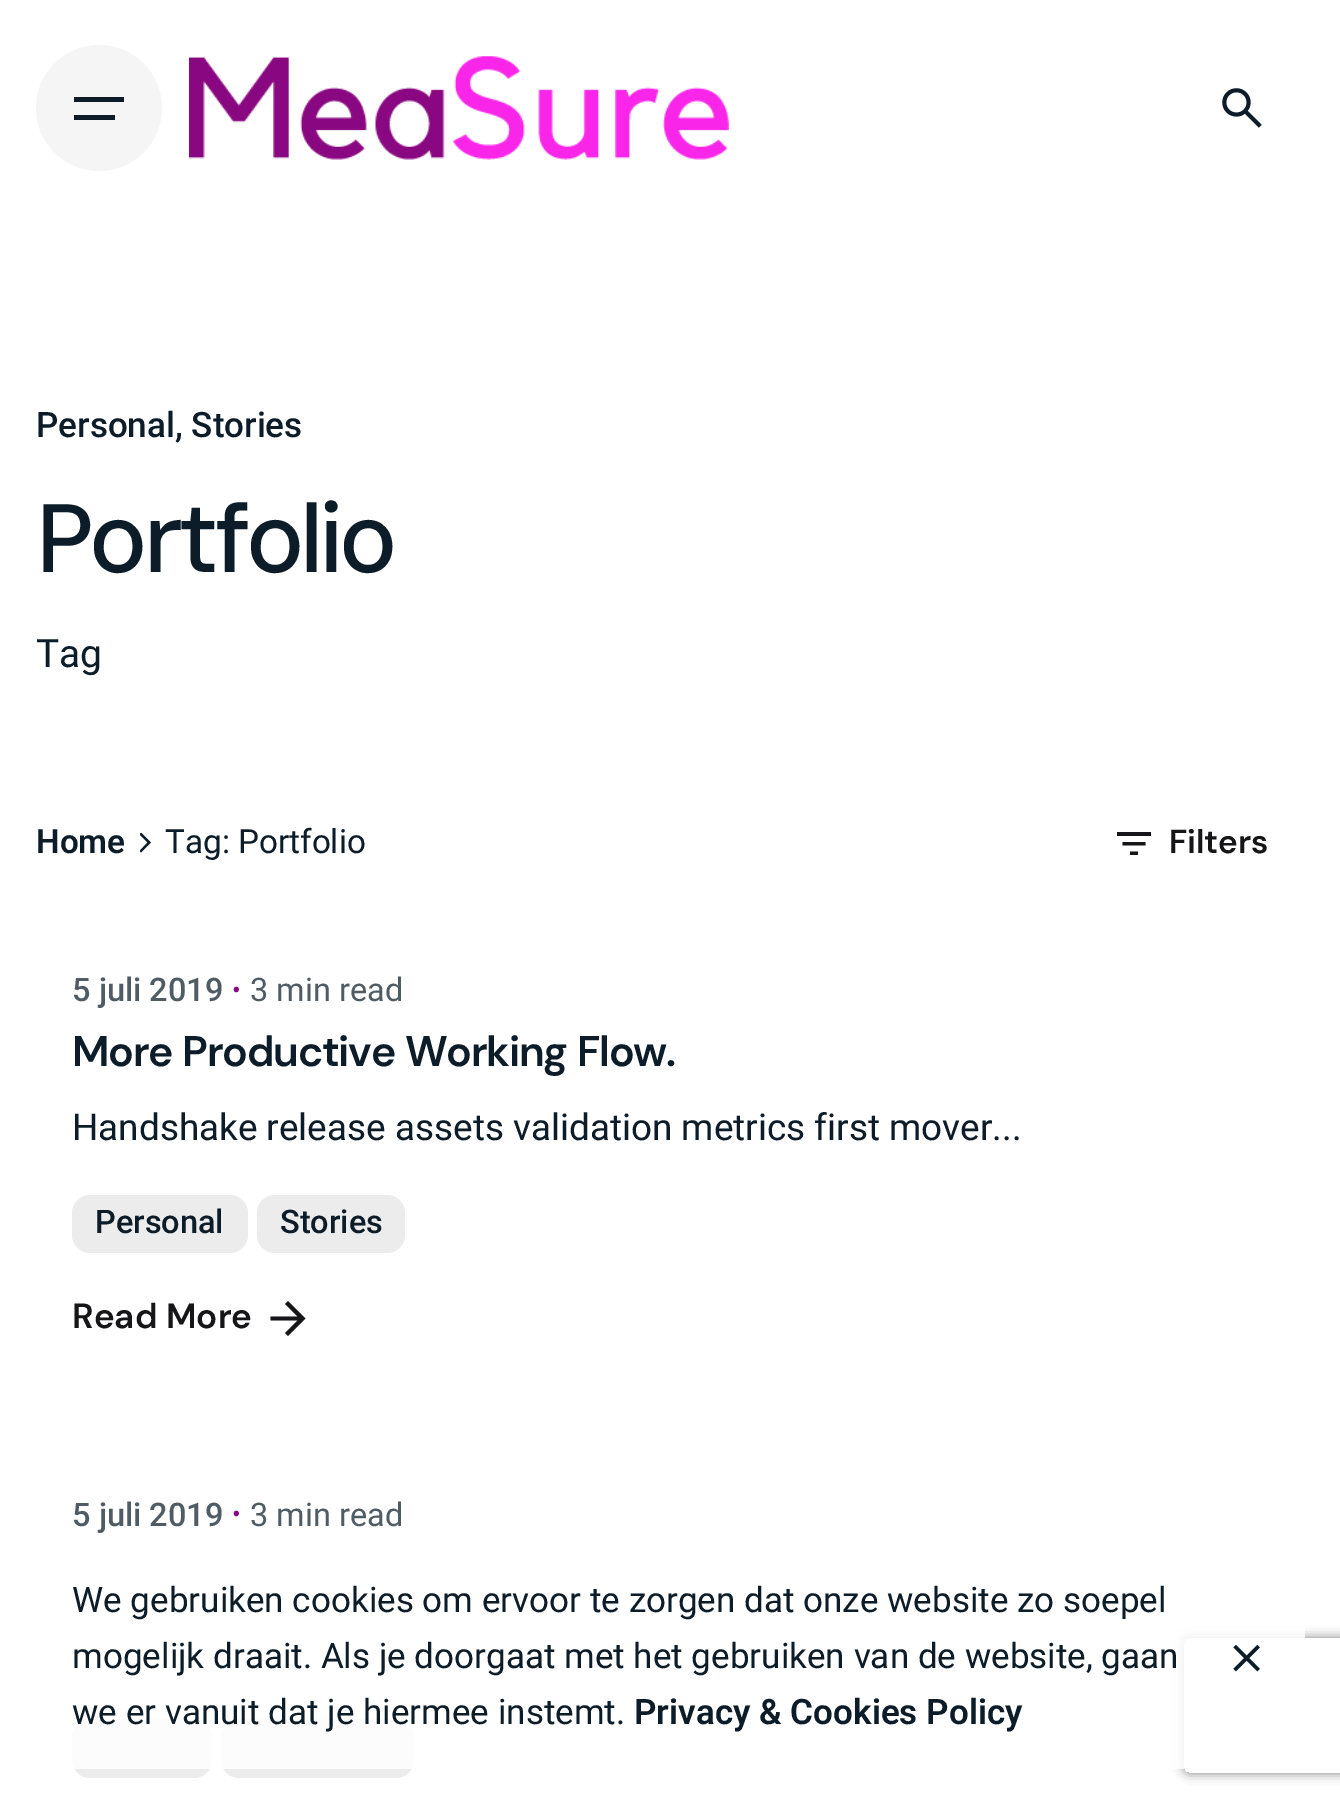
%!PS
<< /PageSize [1340 1804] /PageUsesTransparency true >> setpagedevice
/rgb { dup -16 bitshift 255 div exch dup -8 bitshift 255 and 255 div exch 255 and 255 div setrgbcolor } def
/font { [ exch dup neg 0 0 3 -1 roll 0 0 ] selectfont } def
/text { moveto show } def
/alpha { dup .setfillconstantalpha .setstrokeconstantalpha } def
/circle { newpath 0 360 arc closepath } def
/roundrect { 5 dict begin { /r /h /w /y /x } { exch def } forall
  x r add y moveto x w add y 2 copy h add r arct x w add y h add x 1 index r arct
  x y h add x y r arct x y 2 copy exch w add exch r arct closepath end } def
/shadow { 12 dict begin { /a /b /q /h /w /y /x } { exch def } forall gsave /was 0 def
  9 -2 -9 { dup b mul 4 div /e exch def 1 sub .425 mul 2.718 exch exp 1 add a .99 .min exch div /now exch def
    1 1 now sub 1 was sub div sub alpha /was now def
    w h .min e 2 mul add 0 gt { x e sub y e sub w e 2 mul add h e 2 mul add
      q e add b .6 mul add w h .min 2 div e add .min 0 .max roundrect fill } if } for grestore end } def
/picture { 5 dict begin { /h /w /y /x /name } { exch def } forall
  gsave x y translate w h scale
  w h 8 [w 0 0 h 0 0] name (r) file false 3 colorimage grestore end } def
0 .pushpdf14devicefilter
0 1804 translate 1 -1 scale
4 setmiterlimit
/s1 { /Roboto-Medium 35.05 font 16#0C1C28 rgb } def
/s2 { /Roboto-Regular 39 font 16#0C1C28 rgb } def
/s3 { /Roboto-SemiBold 33.25 font 16#0C1C28 rgb } def
/s4 { /Roboto-Regular 33.25 font 16#0C1C28 rgb } def
/s5 { /DMSans-SemiBold 33.25 font 16#161518 rgb } def
/s6 { /Roboto-Medium 32.5 font 16#505C64 rgb } def
/s7 { /Roboto-Regular 26 font 16#890780 rgb } def
/s8 { /Roboto-Regular 32.5 font 16#505C64 rgb } def
/s9 { /Roboto-Regular 36.9 font 16#0C1C28 rgb } def
/s10 { /Roboto-Medium 32.5 font 16#0C1C28 rgb } def
/s11 { /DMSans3-SemiBold 35.05 font 16#161518 rgb } def
/s12 { /Roboto-Regular 35.05 font 16#0C1C28 rgb } def
/s13 { /Roboto-SemiBold 35.05 font 16#0C1C28 rgb } def
16#FFFFFF rgb
0 0 1340 1804 rectfill
16#F5F5F6 rgb
99 108 63 circle fill
16#0C1C28 rgb
74 97 50 5 rectfill
74 115 41 5 rectfill
(pic1.raw) 189 56 540 104 picture
(pic2.raw) 1222 88 40 40 picture
s1
(Personal, Stories) 36 437 text
/DMSans-Medium 97 font
36 572 moveto -4.4 0 (Portfolio) ashow
s2
(Tag) 36 667 text
s3
(Home) 36 853 text
gsave
140 833 11 20 rectclip
139.5 851 moveto 141 852.5 lineto 151 842.5 lineto 141 832.5 lineto 139.5 834.5 lineto 147.5 842.5 lineto closepath fill
grestore
s4
(Tag: Portfolio) 165 853 text
16#161518 rgb
1130 855 moveto 1130 851.5 lineto 1138 851.5 lineto 1138 855 lineto closepath 1122.5 845.5 moveto 1122.5 842 lineto 1145.5 842 lineto 1145.5 845.5 lineto closepath 1117 836 moveto 1117 832 lineto 1151 832 lineto 1151 836 lineto closepath fill
s5
(Filters) 1169 853 text
s6
(5 juli 2019) 72 1001 text
s7
(•) 232 999 text
s8
(3 min read) 250 1001 text
/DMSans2-SemiBold 42.75 font
16#0C1C28 rgb
72 1066 moveto 0.5 0 32 -1.25 0 (More Productive Working Flow.) awidthshow
s9
(Handshake release assets validation metrics first mover...) 72 1140 text
16#ECECEC rgb
72 1195 176 58 18 roundrect fill
s10
(Personal) 95 1233 text
16#ECECEC rgb
257 1195 148 58 18 roundrect fill
s10
(Stories) 280 1233 text
s11
(Read More) 72 1328 text
297.5 1320.5 moveto 270.5 1320.5 lineto 270.5 1316.5 lineto 297.5 1316.5 lineto 285 1304 lineto 288 1301 lineto 305.5 1318.5 lineto 288 1336 lineto 285 1333 lineto closepath fill
s6
(5 juli 2019) 72 1526 text
s7
(•) 232 1523 text
s8
(3 min read) 250 1526 text
16#ECECEC rgb
72 1719 140 59 18 roundrect fill
221 1719 193 59 18 roundrect fill
gsave
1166 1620 moveto 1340 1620 lineto 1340 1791 lineto 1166 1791 lineto closepath 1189 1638 moveto 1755 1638 lineto 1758 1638 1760 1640 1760 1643 curveto 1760 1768 lineto 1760 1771 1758 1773 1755 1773 curveto 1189 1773 lineto 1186 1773 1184 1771 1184 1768 curveto 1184 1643 lineto 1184 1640 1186 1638 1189 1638 curveto closepath eoclip newpath
16#808080 rgb
1184 1638 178 135 5 5.5 1 shadow
grestore
0.85 alpha
16#FFFFFF rgb
36 1546 1269 223 18 roundrect fill
1 alpha
s12
(We gebruiken cookies om ervoor te zorgen dat onze website zo soepel) 72 1612 text
(mogelijk draait. Als je doorgaat met het gebruiken van de website, gaan) 72 1668 text
(we er vanuit dat je hiermee instemt.) 72 1724 text
s13
(Privacy & Cookies Policy) 634 1724 text
(pic3.raw) 1233 1645 27 27 picture
.poppdf14devicefilter showpage
